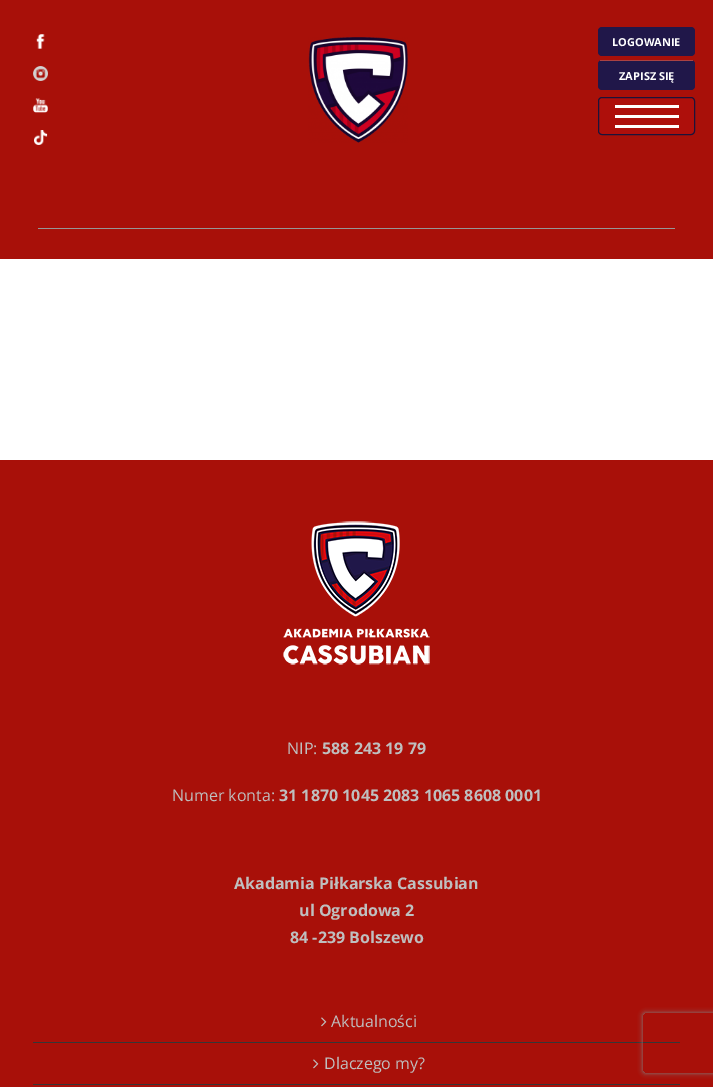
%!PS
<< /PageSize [713 1087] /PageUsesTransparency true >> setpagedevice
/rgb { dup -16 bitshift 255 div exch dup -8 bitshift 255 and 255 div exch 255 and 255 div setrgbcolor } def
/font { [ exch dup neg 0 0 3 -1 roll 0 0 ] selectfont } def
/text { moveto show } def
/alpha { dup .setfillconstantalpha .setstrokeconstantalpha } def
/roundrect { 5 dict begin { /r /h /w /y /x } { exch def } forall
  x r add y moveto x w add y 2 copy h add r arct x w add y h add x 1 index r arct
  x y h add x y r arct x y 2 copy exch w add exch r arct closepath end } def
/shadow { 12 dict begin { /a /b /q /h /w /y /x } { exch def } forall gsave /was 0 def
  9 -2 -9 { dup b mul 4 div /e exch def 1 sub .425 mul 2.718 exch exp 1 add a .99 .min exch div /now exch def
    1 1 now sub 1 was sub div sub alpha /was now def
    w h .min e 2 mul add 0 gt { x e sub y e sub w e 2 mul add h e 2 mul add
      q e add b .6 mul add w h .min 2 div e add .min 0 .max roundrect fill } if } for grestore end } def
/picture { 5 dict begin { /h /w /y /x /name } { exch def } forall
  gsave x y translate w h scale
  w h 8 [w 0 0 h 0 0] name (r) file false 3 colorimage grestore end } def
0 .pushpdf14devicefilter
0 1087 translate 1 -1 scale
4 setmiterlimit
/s1 { /OpenSans-Bold 11 font 16#FFFFFF rgb } def
/s2 { /OpenSans-Regular 16 font 16#BFBFBF rgb } def
/s3 { /OpenSans-Bold 16 font 16#BFBFBF rgb } def
16#FFFFFF rgb
0 0 713 1087 rectfill
16#A81009 rgb
0 0 713 259 rectfill
(pic1.raw) 308 37 100 106 picture
16#AE0F0B rgb
598.5 97.5 96 37 3.5 roundrect gsave fill grestore
16#1B133A rgb
stroke
16#FFFFFF rgb
615 125 64 3 rectfill
615 115 64 3 rectfill
615 105 64 3 rectfill
(pic2.raw) 36 34 9 15 picture
16#201749 rgb
598 27 97 29 4 roundrect fill
s1
(LOGOWANIE) 612 46 text
16#201749 rgb
598 60 97 30 4 roundrect fill
16#AA4243 rgb
600 60 93 1 rectfill
s1
(ZAPISZ SIĘ) 619 80 text
(pic3.raw) 33 66 15 15 picture
(pic4.raw) 33 98 15 15 picture
(pic5.raw) 34 130 14 15 picture
16#969696 rgb
38 228 637 1 rectfill
16#A81009 rgb
0 460 713 627 rectfill
(pic6.raw) 283 521 147 144 picture
s2
(NIP:) 287 754 text
s3
(588 243 19 79) 322 754 text
s2
(Numer konta:) 172 801 text
s3
(31 1870 1045 2083 1065 8608 0001) 279 801 text
(Akadamia Piłkarska Cassubian) 234 889 text
(ul Ogrodowa 2) 299 916 text
(84 -239 Bolszewo) 290 943 text
16#363636 rgb
33 1042 647 1 rectfill
(pic7.raw) 321 1017 6 10 picture
s2
(Aktualności) 331 1027 text
16#363636 rgb
33 1084 647 1 rectfill
(pic7.raw) 313 1059 6 10 picture
s2
(Dlaczego my?) 324 1069 text
gsave
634 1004 moveto 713 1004 lineto 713 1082 lineto 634 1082 lineto closepath 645 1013 moveto 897 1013 lineto 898 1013 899 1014 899 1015 curveto 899 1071 lineto 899 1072 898 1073 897 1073 curveto 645 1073 lineto 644 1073 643 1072 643 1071 curveto 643 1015 lineto 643 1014 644 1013 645 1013 curveto closepath eoclip newpath
16#808080 rgb
643 1013 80 60 2 2.5 1 shadow
grestore
.poppdf14devicefilter showpage
